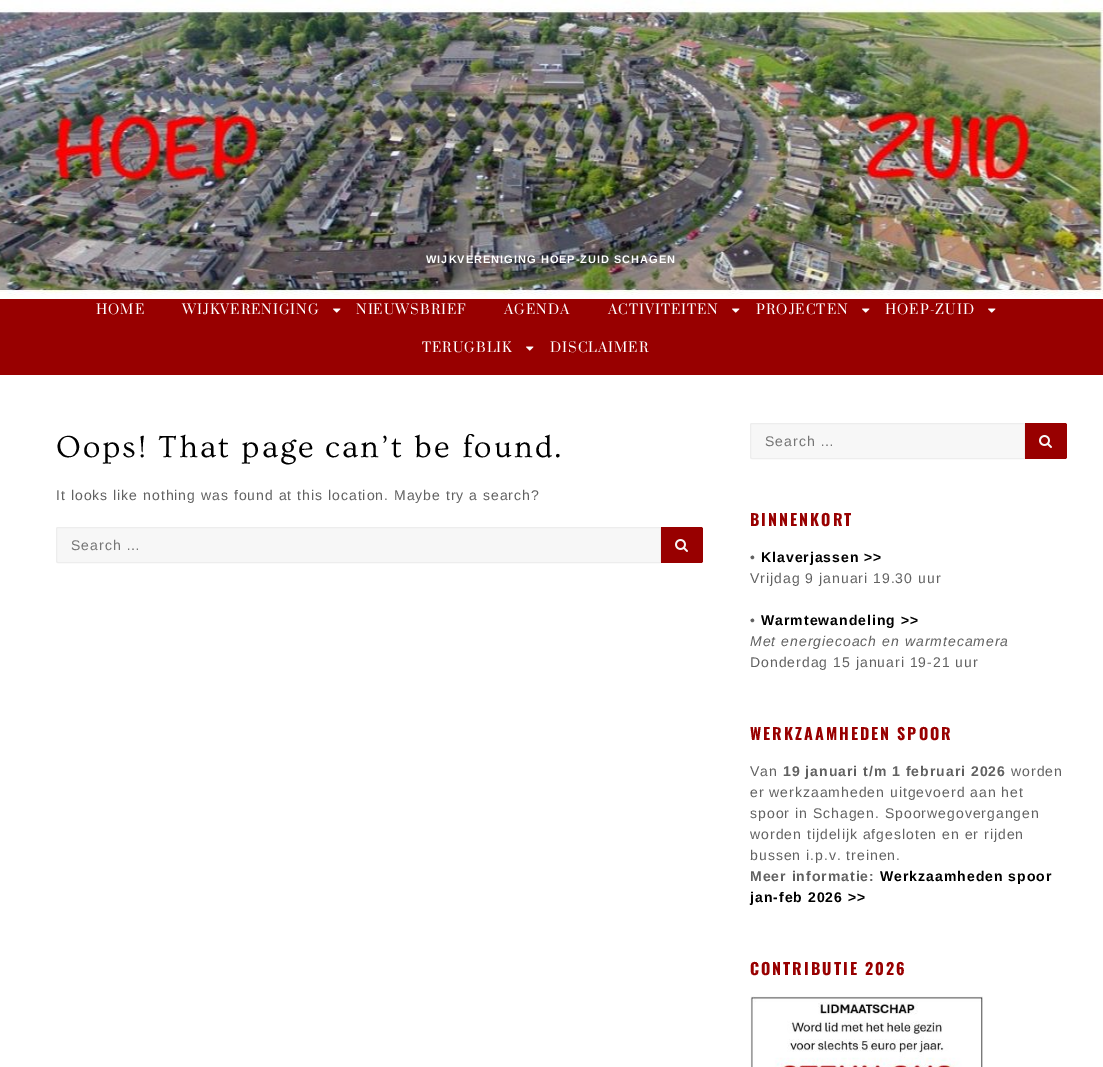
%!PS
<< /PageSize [1103 1067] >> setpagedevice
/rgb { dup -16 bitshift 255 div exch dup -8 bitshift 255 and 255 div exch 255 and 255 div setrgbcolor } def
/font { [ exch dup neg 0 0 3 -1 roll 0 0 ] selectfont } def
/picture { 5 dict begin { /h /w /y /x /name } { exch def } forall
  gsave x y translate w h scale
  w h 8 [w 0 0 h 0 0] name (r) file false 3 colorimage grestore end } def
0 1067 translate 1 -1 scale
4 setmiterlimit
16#FFFFFF rgb
0 0 1103 1067 rectfill
(pic1.raw) 0 0 1103 299 picture
/LiberationSans-Bold 11 font
426 263 moveto 1 0 (WIJKVERENIGING HOEP-ZUID SCHAGEN) ashow
16#980000 rgb
0 299 1103 76 rectfill
/Prata-Regular 13 font
16#FFFFFF rgb
96 314 moveto 1 0 (HOME) ashow
182 314 moveto 1 0 (WIJKVERENIGING) ashow
(pic2.raw) 333 308 8 5 picture
356 314 moveto 1 0 (NIEUWSBRIEF) ashow
504 314 moveto 1 0 (AGENDA) ashow
608 314 moveto 1 0 (ACTIVITEITEN) ashow
(pic2.raw) 732 308 8 5 picture
756 314 moveto 1 0 (PROJECTEN) ashow
(pic2.raw) 862 308 8 5 picture
885 314 moveto 1 0 (HOEP-ZUID) ashow
(pic2.raw) 988 308 8 5 picture
422 352 moveto 1 0 (TERUGBLIK) ashow
(pic2.raw) 526 346 8 5 picture
550 352 moveto 1 0 (DISCLAIMER) ashow
/Ovo-Regular 32 font
16#000000 rgb
56 457 moveto 2 0 (Oops! That page can’t be found.) ashow
/LiberationSans-Regular 14 font
16#616161 rgb
56 500 moveto 1 0 (It looks like nothing was found at this location. Maybe try a search?) ashow
16#F7F7F7 rgb
58 527.5 moveto 660.5 527.5 lineto 660.5 562.5 lineto 58 562.5 lineto 57 562.5 56.5 562 56.5 561 curveto 56.5 529 lineto 56.5 528 57 527.5 58 527.5 curveto closepath gsave fill grestore
16#EDEDED rgb
stroke
16#757575 rgb
71 550 moveto 1 0 (Search …) ashow
16#980000 rgb
661 527 moveto 701 527 lineto 702 527 703 528 703 529 curveto 703 561 lineto 703 562 702 563 701 563 curveto 661 563 lineto closepath fill
(pic3.raw) 675 539 13 13 picture
16#F7F7F7 rgb
752 423.5 moveto 1024.5 423.5 lineto 1024.5 458.5 lineto 752 458.5 lineto 751 458.5 750.5 458 750.5 457 curveto 750.5 425 lineto 750.5 424 751 423.5 752 423.5 curveto closepath gsave fill grestore
16#EDEDED rgb
stroke
16#757575 rgb
765 446 moveto 1 0 (Search …) ashow
16#980000 rgb
1025 423 moveto 1065 423 lineto 1066 423 1067 424 1067 425 curveto 1067 457 lineto 1067 458 1066 459 1065 459 curveto 1025 459 lineto closepath fill
(pic3.raw) 1039 435 13 13 picture
/Oswald-Bold 16 font
750 526 moveto 2 0 (BINNENKORT) ashow
/LiberationSans-Regular 14 font
16#616161 rgb
750 562 moveto 1 0 (•) ashow
/LiberationSans-Bold 14 font
16#000000 rgb
761 562 moveto 1 0 (Klaverjassen >>) ashow
/LiberationSans-Regular 14 font
16#616161 rgb
750 583 moveto 1 0 (Vrijdag 9 januari 19.30 uur) ashow
750 625 moveto 1 0 (•) ashow
/LiberationSans-Bold 14 font
16#000000 rgb
761 625 moveto 1 0 (Warmtewandeling >>) ashow
/LiberationSans-Italic 14 font
16#616161 rgb
750 646 moveto 1 0 (Met energiecoach en warmtecamera) ashow
/LiberationSans-Regular 14 font
750 667 moveto 1 0 (Donderdag 15 januari 19-21 uur) ashow
/Oswald-Bold 16 font
16#980000 rgb
750 740 moveto 2 0 (WERKZAAMHEDEN SPOOR) ashow
/LiberationSans-Regular 14 font
16#616161 rgb
750 776 moveto 1 0 (Van) ashow
/LiberationSans-Bold 14 font
783 776 moveto 1 0 (19 januari t/m 1 februari 2026) ashow
/LiberationSans-Regular 14 font
1011 776 moveto 1 0 (worden) ashow
750 797 moveto 1 0 (er werkzaamheden uitgevoerd aan het) ashow
750 818 moveto 1 0 (spoor in Schagen. Spoorwegovergangen) ashow
750 839 moveto 1 0 (worden tijdelijk afgesloten en er rijden) ashow
750 860 moveto 1 0 (bussen i.p.v. treinen.) ashow
/LiberationSans-Bold 14 font
750 881 moveto 1 0 (Meer informatie:) ashow
16#000000 rgb
880 881 moveto 1 0 (Werkzaamheden spoor) ashow
750 902 moveto 1 0 (jan-feb 2026 >>) ashow
/Oswald-Bold 16 font
16#980000 rgb
750 975 moveto 2 0 (CONTRIBUTIE 2026) ashow
(pic4.raw) 750 996 233 71 picture
showpage
